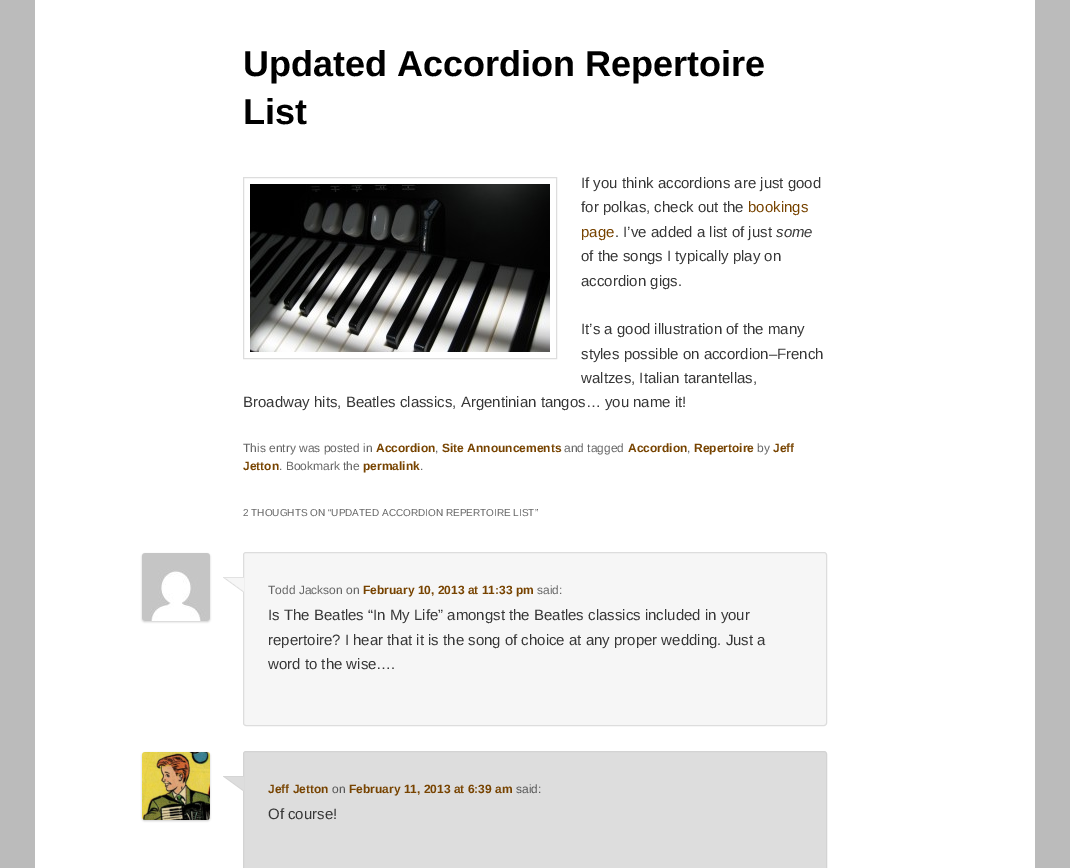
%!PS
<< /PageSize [1070 868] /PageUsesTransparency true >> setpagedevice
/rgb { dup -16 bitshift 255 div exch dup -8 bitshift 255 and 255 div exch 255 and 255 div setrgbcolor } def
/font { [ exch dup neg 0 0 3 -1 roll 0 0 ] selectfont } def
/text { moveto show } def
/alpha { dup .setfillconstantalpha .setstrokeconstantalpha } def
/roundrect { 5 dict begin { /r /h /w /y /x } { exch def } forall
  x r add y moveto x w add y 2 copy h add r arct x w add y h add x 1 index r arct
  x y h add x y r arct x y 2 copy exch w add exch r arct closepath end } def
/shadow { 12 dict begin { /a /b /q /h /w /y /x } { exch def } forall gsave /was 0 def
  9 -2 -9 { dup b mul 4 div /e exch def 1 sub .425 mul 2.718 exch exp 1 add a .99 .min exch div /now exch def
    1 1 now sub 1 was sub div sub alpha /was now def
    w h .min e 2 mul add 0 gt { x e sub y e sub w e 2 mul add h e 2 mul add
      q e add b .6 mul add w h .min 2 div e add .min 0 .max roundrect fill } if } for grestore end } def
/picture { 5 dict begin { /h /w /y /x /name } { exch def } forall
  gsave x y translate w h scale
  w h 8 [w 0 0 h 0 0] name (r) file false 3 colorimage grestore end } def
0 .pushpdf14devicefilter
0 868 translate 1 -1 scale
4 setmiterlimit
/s1 { /LiberationSans-Bold 36 font 16#000000 rgb } def
/s2 { /LiberationSans-Regular 15 font 16#373737 rgb } def
/s3 { /LiberationSans-Regular 15 font 16#774300 rgb } def
/s4 { /LiberationSans-Italic 15 font 16#373737 rgb } def
/s5 { /LiberationSans-Regular 12 font 16#666666 rgb } def
/s6 { /LiberationSans-Bold 12 font 16#774300 rgb } def
/s7 { /LiberationSans-Regular 10 font 16#666666 rgb } def
/s8 { /LiberationSans-Regular 12 font 16#575757 rgb } def
16#BBBBBB rgb
0 0 1070 868 rectfill
16#FFFFFF rgb
35 0 1000 868 rectfill
s1
(Updated Accordion Repertoire) 243 76 text
(List) 243 124 text
16#DDDDDD rgb
243.5 177.5 313 181 rectstroke
(pic1.raw) 250 184 300 168 picture
s2
(If you think accordions are just good) 581 188 text
(for polkas, check out the) 581 212 text
s3
(bookings) 748 212 text
(page) 581 237 text
s2
(. I’ve added a list of just) 615 237 text
s4
(some) 776 237 text
s2
(of the songs I typically play on) 581 261 text
(accordion gigs.) 581 286 text
(It’s a good illustration of the many) 581 334 text
(styles possible on accordion–French) 581 359 text
(waltzes, Italian tarantellas,) 581 383 text
(Broadway hits, Beatles classics, Argentinian tangos… you name it!) 243 407 text
s5
(This entry was posted in) 243 452 text
s6
(Accordion) 376 452 text
s5
(,) 435 452 text
s6
(Site Announcements) 442 452 text
s5
(and tagged) 564 452 text
s6
(Accordion) 628 452 text
s5
(,) 687 452 text
s6
(Repertoire) 694 452 text
s5
(by) 757 452 text
s6
(Jeff) 773 452 text
(Jetton) 243 470 text
s5
(. Bookmark the) 279 470 text
s6
(permalink) 363 470 text
s5
(.) 420 470 text
s7
(2 THOUGHTS ON “UPDATED ACCORDION REPERTOIRE LIST”) 243 516 text
16#F6F6F6 rgb
243.5 552.5 583 173 2.5 roundrect gsave fill grestore
16#DDDDDD rgb
stroke
(pic2.raw) 223 577 21 15 picture
16#CCCCCC rgb
142 554 68 68 3 1 1 shadow
(pic3.raw) 142 553 68 68 picture
s5
(Todd Jackson on) 268 594 text
s6
(February 10, 2013 at 11:33 pm) 363 594 text
s5
(said:) 537 594 text
s2
(Is The Beatles “In My Life” amongst the Beatles classics included in your) 268 620 text
(repertoire? I hear that it is the song of choice at any proper wedding. Just a) 268 645 text
(word to the wise….) 268 669 text
16#DDDDDD rgb
243.5 751.5 583 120 2.5 roundrect gsave fill grestore
16#D3D3D3 rgb
stroke
(pic4.raw) 223 776 21 15 picture
16#CCCCCC rgb
142 753 68 68 3 1 1 shadow
(pic5.raw) 142 752 68 68 picture
s6
(Jeff Jetton) 268 793 text
s8
(on) 332 793 text
s6
(February 11, 2013 at 6:39 am) 349 793 text
s8
(said:) 516 793 text
s2
(Of course!) 268 819 text
.poppdf14devicefilter showpage
